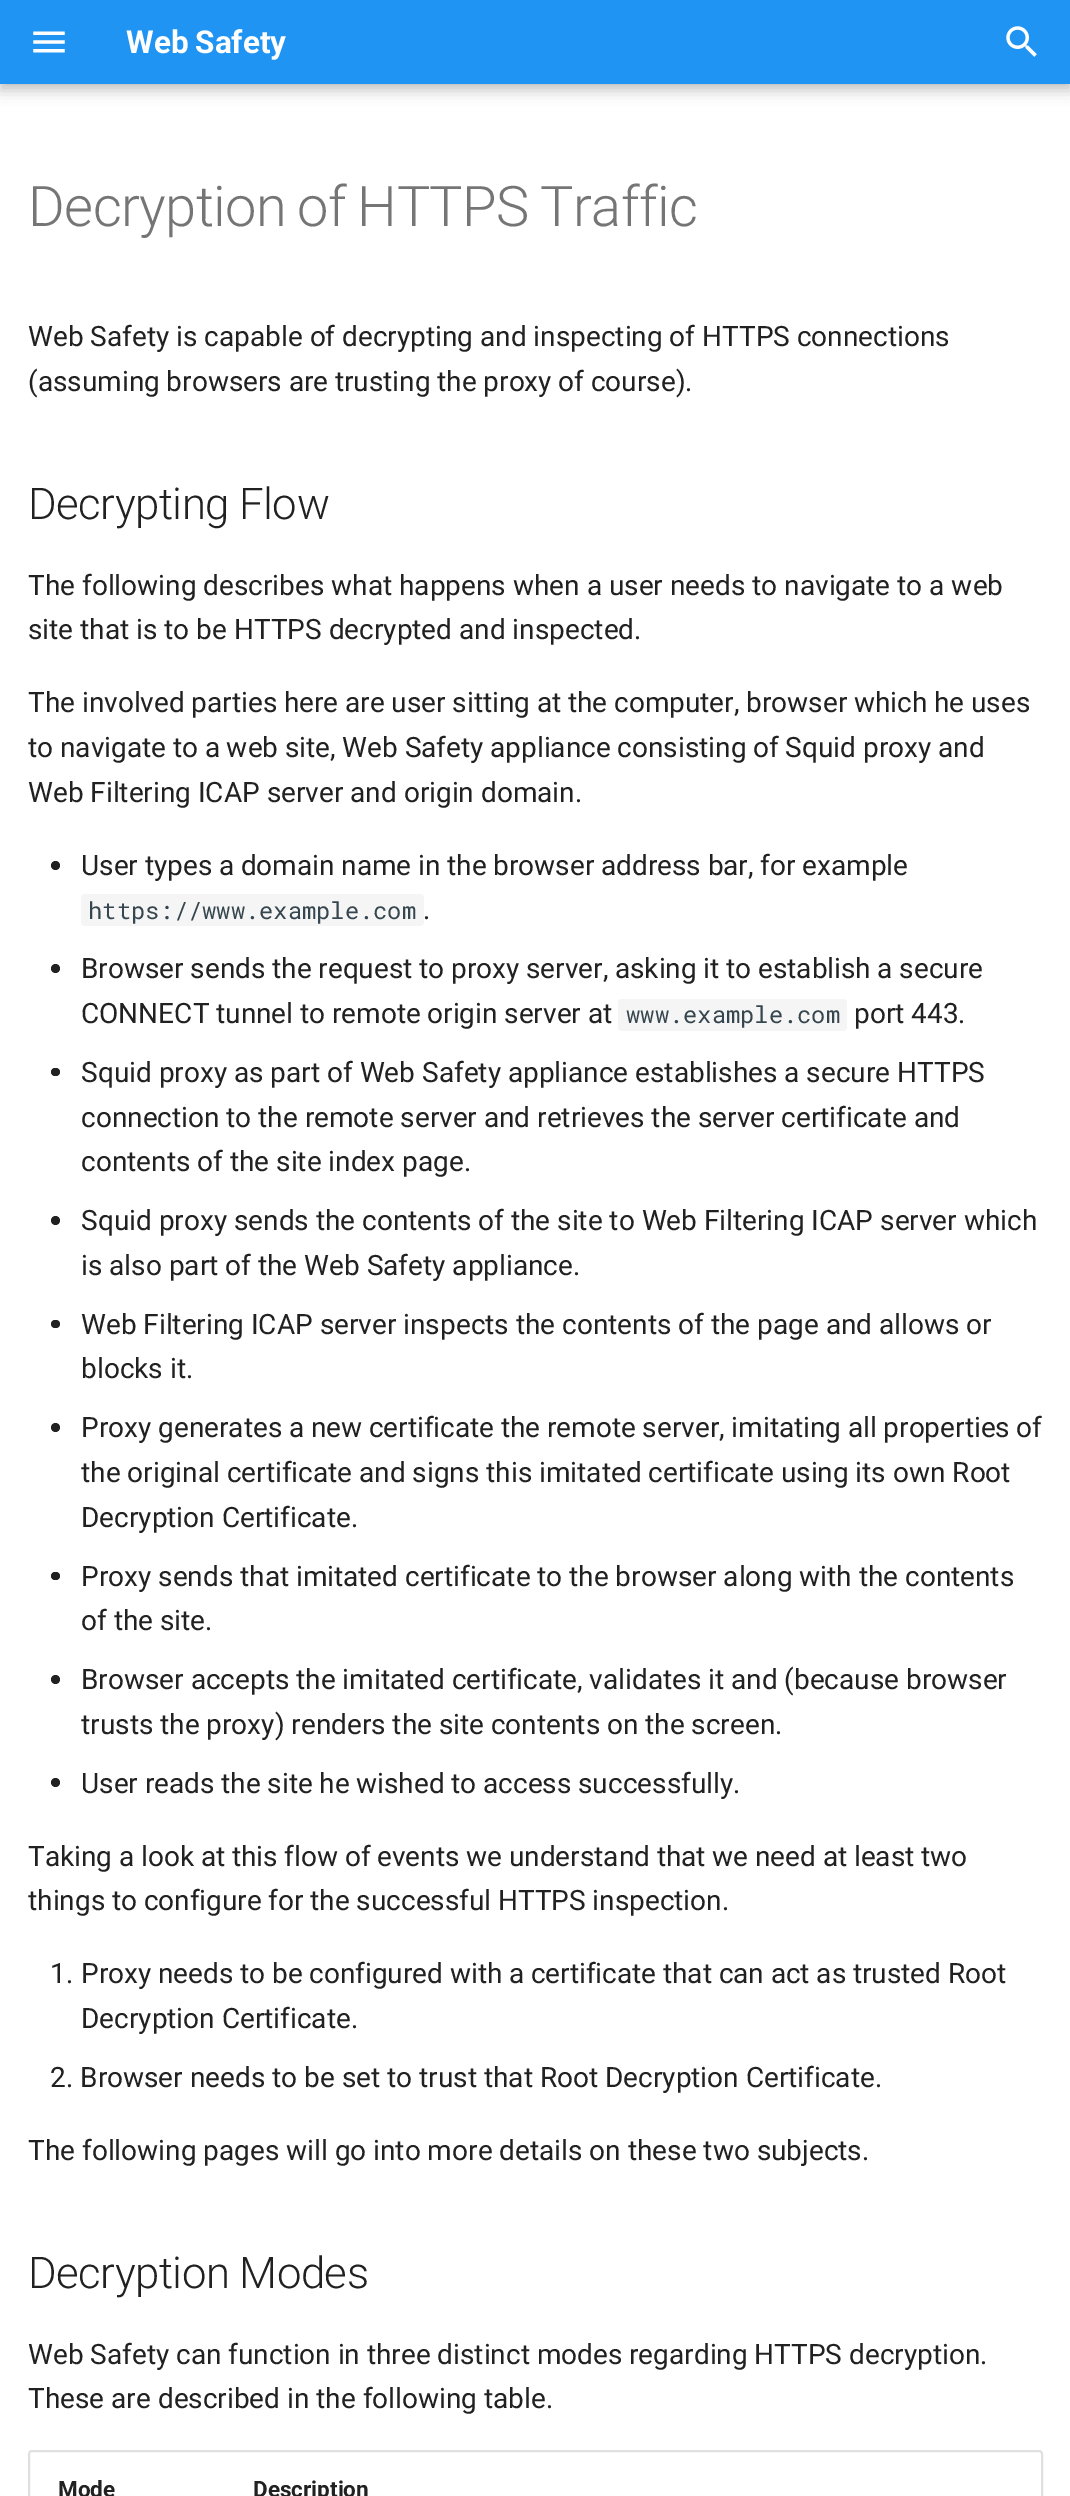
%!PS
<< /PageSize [1070 2496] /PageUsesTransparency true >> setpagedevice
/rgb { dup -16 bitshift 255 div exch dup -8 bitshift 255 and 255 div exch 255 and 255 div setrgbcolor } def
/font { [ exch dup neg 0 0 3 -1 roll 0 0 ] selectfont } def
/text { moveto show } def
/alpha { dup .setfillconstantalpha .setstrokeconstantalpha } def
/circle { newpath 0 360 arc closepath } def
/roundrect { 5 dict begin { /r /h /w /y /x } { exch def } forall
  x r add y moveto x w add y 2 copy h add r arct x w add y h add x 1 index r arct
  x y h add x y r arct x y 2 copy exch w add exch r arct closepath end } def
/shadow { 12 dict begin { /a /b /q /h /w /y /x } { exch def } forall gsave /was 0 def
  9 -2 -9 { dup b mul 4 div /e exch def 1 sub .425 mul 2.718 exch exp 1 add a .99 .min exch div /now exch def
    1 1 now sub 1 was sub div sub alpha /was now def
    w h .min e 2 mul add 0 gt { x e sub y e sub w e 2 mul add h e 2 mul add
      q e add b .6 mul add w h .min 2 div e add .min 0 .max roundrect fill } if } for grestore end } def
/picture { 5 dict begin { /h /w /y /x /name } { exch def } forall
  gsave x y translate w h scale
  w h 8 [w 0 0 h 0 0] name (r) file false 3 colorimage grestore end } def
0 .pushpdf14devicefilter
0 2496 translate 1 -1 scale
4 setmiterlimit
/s1 { /Roboto-Regular 28 font 16#212121 rgb } def
/s2 { /RobotoMono-Regular 23.75 font 16#36464E rgb } def
/s3 { /Roboto-Bold 22.5 font 16#212121 rgb } def
16#FFFFFF rgb
0 0 1070 2496 rectfill
16#000000 rgb
0 7 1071 84 0 7 0.2 shadow
0 0 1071 84 0 3.5 0.1 shadow
16#2094F3 rgb
0 0 1070 84 rectfill
(pic1.raw) 33 31 32 22 picture
/Roboto-Bold 31.5 font
16#FFFFFF rgb
126 53 moveto -1 0 32 (Web Safety) widthshow
(pic2.raw) 1006 26 31 31 picture
/Roboto-Light 56 font
16#757575 rgb
28 226 moveto -2 0 32 -0.55 0 (Decryption of HTTPS Traffic) awidthshow
s1
(Web Safety is capable of decrypting and inspecting of HTTPS connections) 28 346 text
28 391 moveto -0.25 0 32 (\(assuming browsers are trusting the proxy of course\).) widthshow
/Roboto-Light 43.75 font
28 519 moveto -0.5 0 (Decrypting Flow) ashow
s1
(The following describes what happens when a user needs to navigate to a web) 28 595 text
(site that is to be HTTPS decrypted and inspected.) 28 639 text
28 712 moveto -0.2 0 32 (The involved parties here are user sitting at the computer, browser which he uses) widthshow
28 757 moveto -0.2 0 32 (to navigate to a web site, Web Safety appliance consisting of Squid proxy and) widthshow
(Web Filtering ICAP server and origin domain.) 28 802 text
55.5 865.5 4.5 circle fill
81 875 moveto -0.25 0 32 (User types a domain name in the browser address bar, for example) widthshow
16#F5F5F5 rgb
81 894 343 32 4 roundrect fill
s2
(https://www.example.com) 88 919 text
s1
(.) 423 919 text
55.5 968.5 4.5 circle fill
81 978 moveto -0.25 0 32 (Browser sends the request to proxy server, asking it to establish a secure) widthshow
81 1023 moveto -0.25 0 32 (CONNECT tunnel to remote origin server at) widthshow
16#F5F5F5 rgb
618 999 229 32 4 roundrect fill
s2
(www.example.com) 626 1023 text
s1
(port 443.) 854 1023 text
51 1068 9 8 4 roundrect fill
(Squid proxy as part of Web Safety appliance establishes a secure HTTPS) 81 1082 text
81 1127 moveto -0.1 0 32 (connection to the remote server and retrieves the server certificate and) widthshow
(contents of the site index page.) 81 1171 text
55.5 1220.5 4.5 circle fill
(Squid proxy sends the contents of the site to Web Filtering ICAP server which) 81 1230 text
(is also part of the Web Safety appliance.) 81 1275 text
51 1320 9 8 4 roundrect fill
(Web Filtering ICAP server inspects the contents of the page and allows or) 81 1334 text
(blocks it.) 81 1378 text
55.5 1427.5 4.5 circle fill
81 1437 moveto -0.25 0 32 (Proxy generates a new certificate the remote server, imitating all properties of) widthshow
(the original certificate and signs this imitated certificate using its own Root) 81 1482 text
(Decryption Certificate.) 81 1527 text
51 1572 9 8 4 roundrect fill
81 1586 moveto -0.1 0 32 (Proxy sends that imitated certificate to the browser along with the contents) widthshow
(of the site.) 81 1630 text
55.5 1679.5 4.5 circle fill
81 1689 moveto -0.1 0 32 (Browser accepts the imitated certificate, validates it and \(because browser) widthshow
81 1734 moveto -0.1 0 32 (trusts the proxy\) renders the site contents on the screen.) widthshow
55.5 1782.5 4.5 circle fill
81 1793 moveto -0.25 0 32 (User reads the site he wished to access successfully.) widthshow
28 1866 moveto -0.2 0 32 (Taking a look at this flow of events we understand that we need at least two) widthshow
28 1910 moveto -0.25 0 32 (things to configure for the successful HTTPS inspection.) widthshow
(1.) 50 1983 text
81 1983 moveto -0.25 0 32 (Proxy needs to be configured with a certificate that can act as trusted Root) widthshow
(Decryption Certificate.) 81 2028 text
(2. Browser needs to be set to trust that Root Decryption Certificate.) 50 2087 text
(The following pages will go into more details on these two subjects.) 28 2160 text
/Roboto-Light 43.75 font
28 2288 moveto -0.5 0 (Decryption Modes) ashow
/Roboto-Regular 28 font
28 2364 moveto -0.1 0 32 (Web Safety can function in three distinct modes regarding HTTPS decryption.) widthshow
(These are described in the following table.) 28 2408 text
16#E0E0E0 rgb
2 setlinewidth
29 2451 1013 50 3 roundrect stroke
s3
(Mode) 58 2497 text
(Description) 253 2497 text
.poppdf14devicefilter showpage
